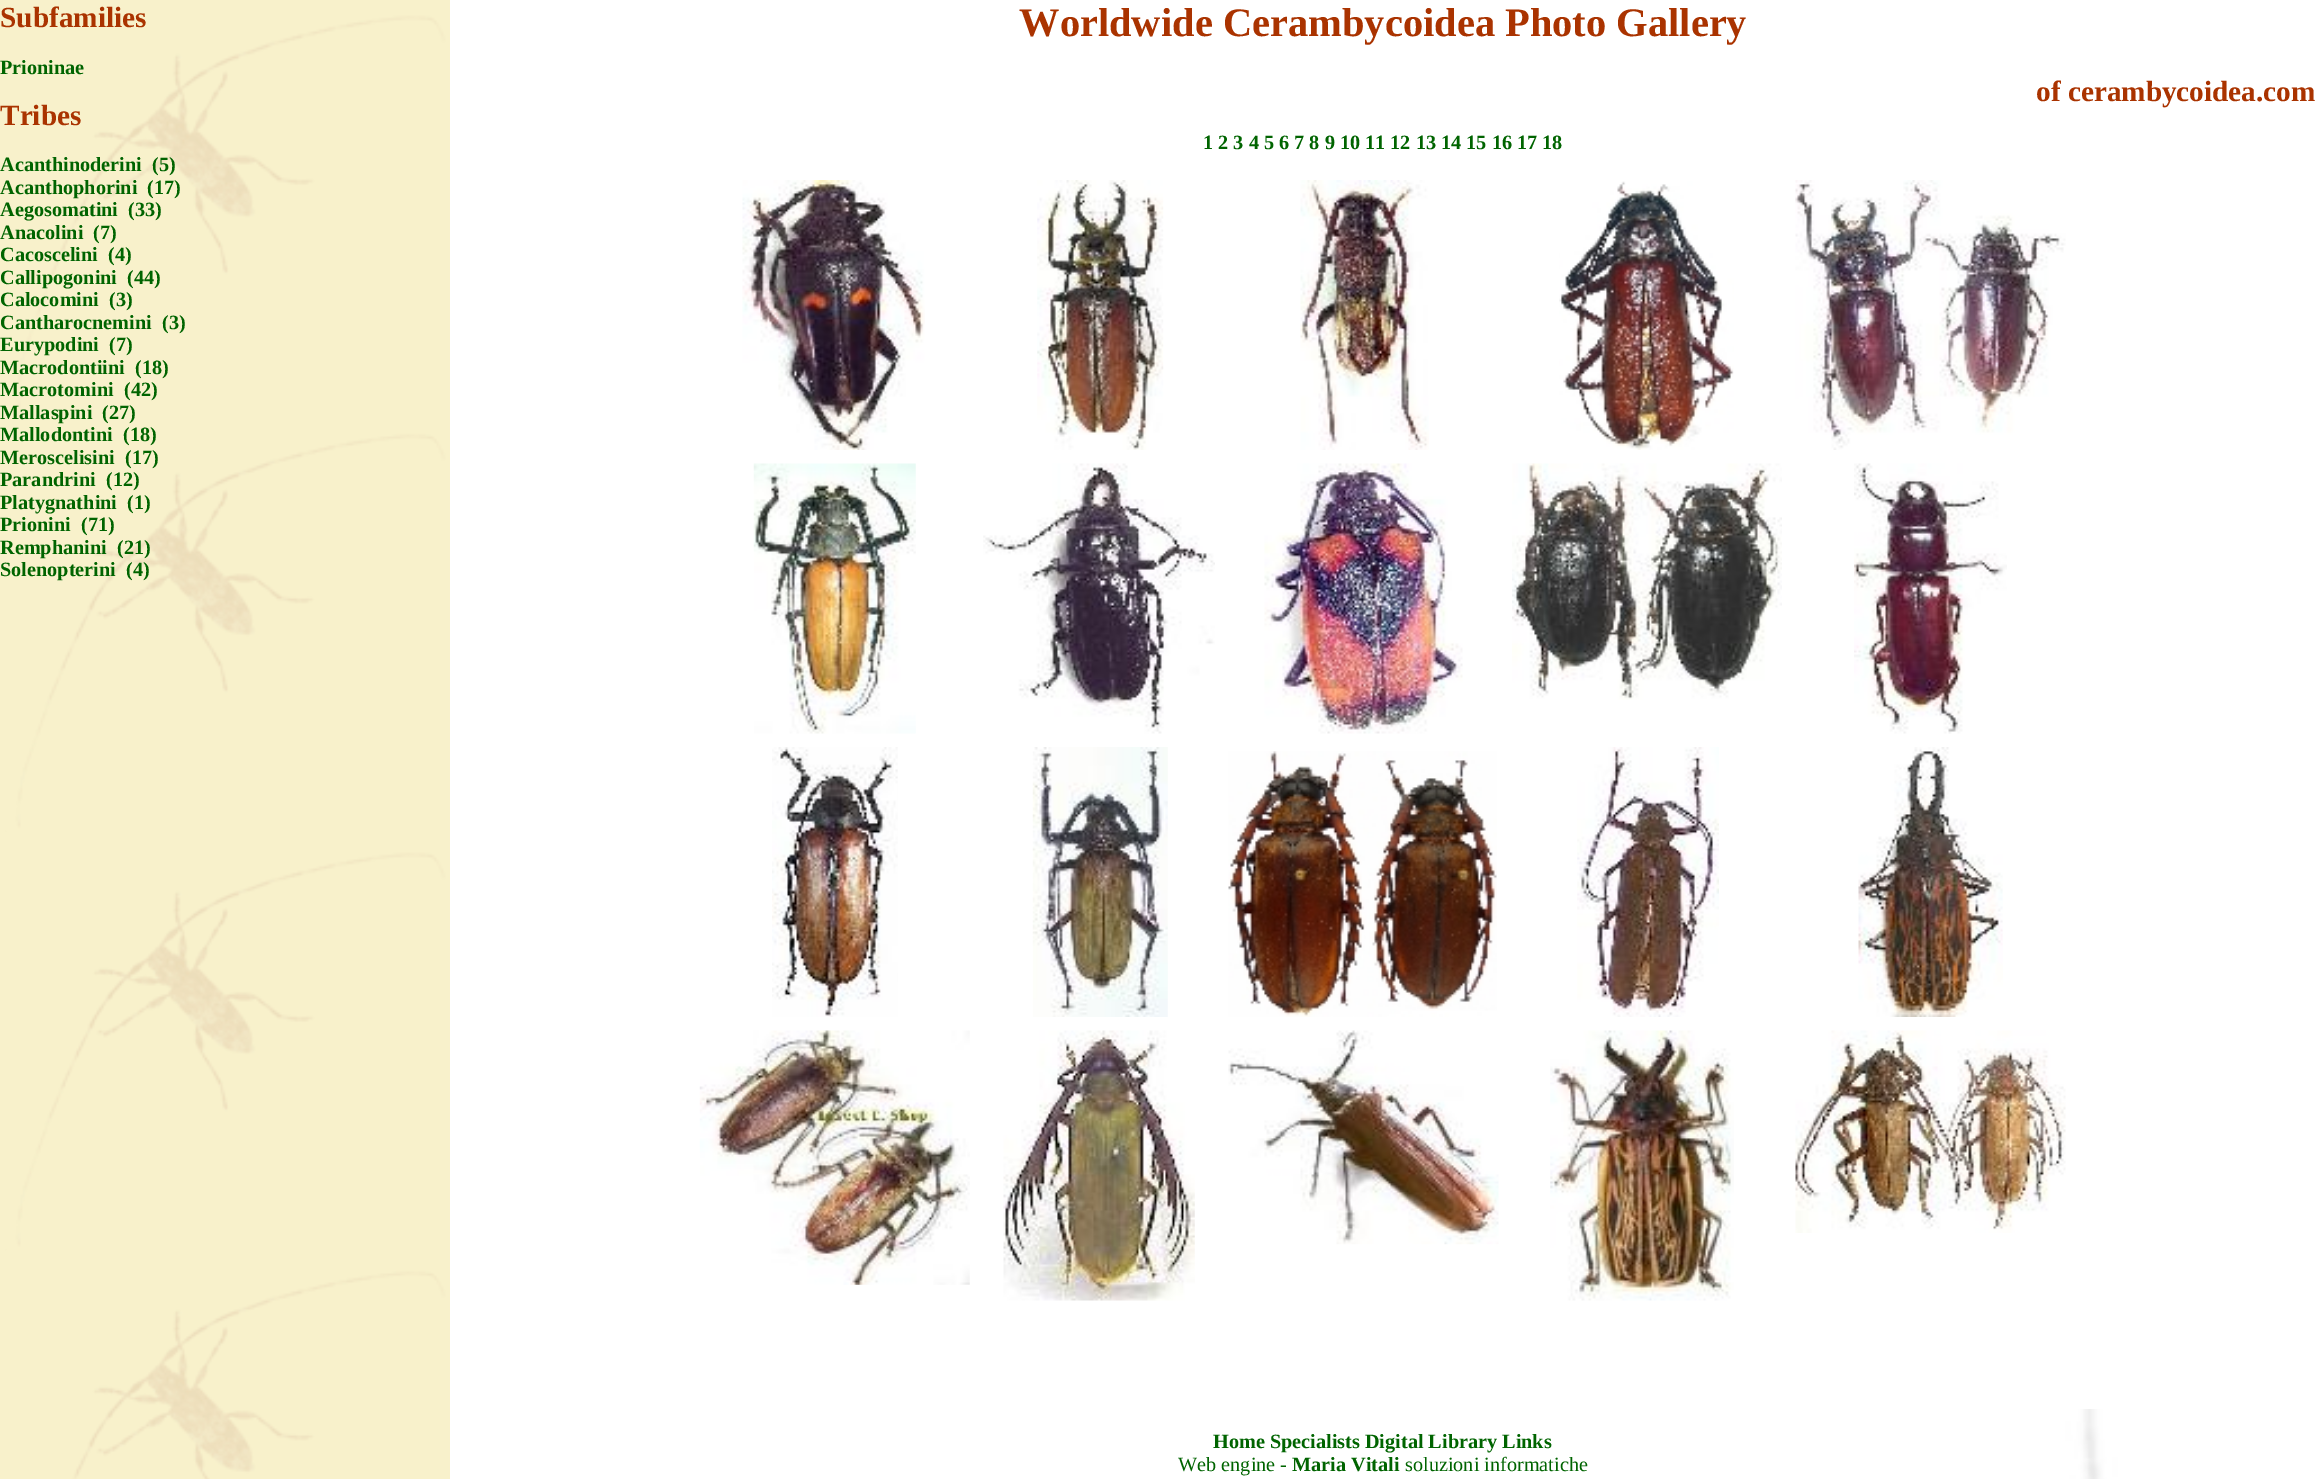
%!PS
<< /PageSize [2315 1479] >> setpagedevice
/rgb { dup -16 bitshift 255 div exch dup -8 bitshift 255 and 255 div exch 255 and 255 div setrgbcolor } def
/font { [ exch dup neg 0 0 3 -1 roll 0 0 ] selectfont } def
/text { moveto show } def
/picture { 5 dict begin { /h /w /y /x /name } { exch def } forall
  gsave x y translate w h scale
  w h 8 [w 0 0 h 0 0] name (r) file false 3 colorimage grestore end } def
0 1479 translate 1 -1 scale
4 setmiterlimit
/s1 { /LiberationSerif-Bold 29.25 font 16#AA3300 rgb } def
/s2 { /LiberationSerif-Bold 20.25 font 16#006400 rgb } def
/s3 { /LiberationSerif-Bold 40.5 font 16#AA3300 rgb } def
/s4 { /LiberationSerif-Regular 20.25 font 16#006400 rgb } def
16#FFFFFF rgb
0 0 2315 1479 rectfill
(pic1.raw) 2006 1409 309 70 picture
(pic2.raw) 0 0 450 1479 picture
s1
(Subfamilies) 0 27 text
s2
(Prioninae) 0 74 text
s1
(Tribes) 0 125 text
s2
(Acanthinoderini) 0 171 text
(\(5\)) 152 171 text
(Acanthophorini) 0 194 text
(\(17\)) 147 194 text
(Aegosomatini) 0 216 text
(\(33\)) 128 216 text
(Anacolini) 0 239 text
(\(7\)) 93 239 text
(Cacoscelini) 0 261 text
(\(4\)) 108 261 text
(Callipogonini) 0 284 text
(\(44\)) 127 284 text
(Calocomini) 0 306 text
(\(3\)) 109 306 text
(Cantharocnemini) 0 329 text
(\(3\)) 162 329 text
(Eurypodini) 0 351 text
(\(7\)) 109 351 text
(Macrodontiini) 0 374 text
(\(18\)) 135 374 text
(Macrotomini) 0 396 text
(\(42\)) 124 396 text
(Mallaspini) 0 419 text
(\(27\)) 102 419 text
(Mallodontini) 0 441 text
(\(18\)) 123 441 text
(Meroscelisini) 0 464 text
(\(17\)) 125 464 text
(Parandrini) 0 486 text
(\(12\)) 106 486 text
(Platygnathini) 0 509 text
(\(1\)) 127 509 text
(Prionini) 0 531 text
(\(71\)) 81 531 text
(Remphanini) 0 554 text
(\(21\)) 117 554 text
(Solenopterini) 0 576 text
(\(4\)) 126 576 text
s3
(Worldwide Cerambycoidea Photo Gallery) 1019 36 text
s1
(of cerambycoidea.com) 2036 101 text
s2
(1 2 3 4 5 6 7 8 9 10 11 12 13 14 15 16 17 18) 1203 149 text
(pic3.raw) 742 180 183 270 picture
(pic4.raw) 1037 180 127 270 picture
(pic5.raw) 1300 180 129 270 picture
(pic6.raw) 1559 181 175 269 picture
(pic7.raw) 1795 180 271 270 picture
(pic8.raw) 753 463 163 271 picture
(pic9.raw) 983 463 232 271 picture
(pic10.raw) 1264 463 199 271 picture
(pic11.raw) 1512 463 270 237 picture
(pic12.raw) 1854 463 153 271 picture
(pic13.raw) 772 747 126 270 picture
(pic14.raw) 1032 747 136 270 picture
(pic15.raw) 1228 751 269 266 picture
(pic16.raw) 1577 747 142 270 picture
(pic17.raw) 1858 747 145 270 picture
(pic18.raw) 699 1030 271 255 picture
(pic19.raw) 1003 1030 192 271 picture
(pic20.raw) 1228 1030 271 215 picture
(pic21.raw) 1550 1030 184 271 picture
(pic22.raw) 1795 1030 271 203 picture
(Home Specialists Digital Library Links) 1213 1448 text
s4
(Web engine -) 1178 1471 text
s2
(Maria Vitali) 1292 1471 text
s4
(soluzioni informatiche) 1405 1471 text
showpage
